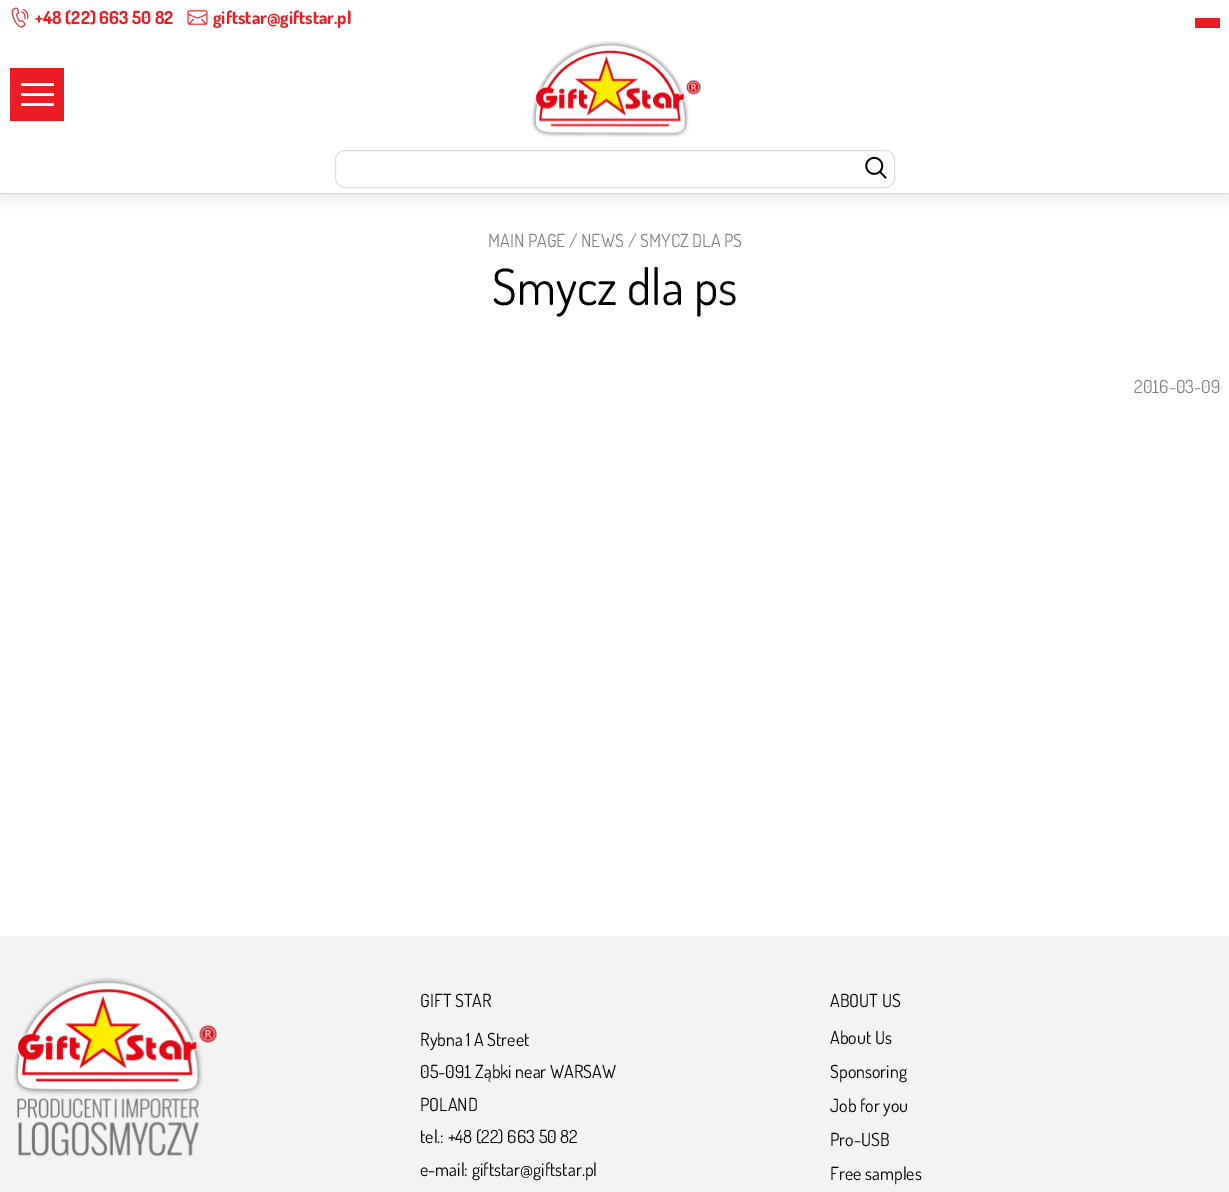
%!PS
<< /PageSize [1229 1192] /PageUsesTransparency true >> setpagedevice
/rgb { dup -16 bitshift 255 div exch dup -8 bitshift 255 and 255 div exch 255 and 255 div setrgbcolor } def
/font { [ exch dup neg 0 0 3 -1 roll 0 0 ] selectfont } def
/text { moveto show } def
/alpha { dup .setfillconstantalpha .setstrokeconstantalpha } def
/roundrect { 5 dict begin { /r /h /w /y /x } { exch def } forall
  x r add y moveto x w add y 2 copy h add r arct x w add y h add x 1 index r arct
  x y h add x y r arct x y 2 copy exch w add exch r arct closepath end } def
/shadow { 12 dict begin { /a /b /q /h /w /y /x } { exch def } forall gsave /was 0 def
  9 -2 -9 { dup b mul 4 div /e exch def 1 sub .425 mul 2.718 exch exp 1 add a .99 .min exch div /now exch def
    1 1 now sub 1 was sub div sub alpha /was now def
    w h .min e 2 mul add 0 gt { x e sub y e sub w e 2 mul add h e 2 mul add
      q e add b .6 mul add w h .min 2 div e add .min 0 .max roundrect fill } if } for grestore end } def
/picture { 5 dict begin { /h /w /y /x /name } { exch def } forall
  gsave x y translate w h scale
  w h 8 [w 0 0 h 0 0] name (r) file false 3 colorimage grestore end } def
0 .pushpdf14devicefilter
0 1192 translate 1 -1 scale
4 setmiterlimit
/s1 { /Dosis-Bold 18 font 16#EC1C24 rgb } def
/s2 { /Dosis-Regular 18 font 16#808080 rgb } def
/s3 { /Dosis-Regular 50 font 16#000000 rgb } def
/s4 { /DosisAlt-Regular 18 font 16#808080 rgb } def
/s5 { /Dosis-Regular 18 font 16#000000 rgb } def
/s6 { /DosisAlt-Regular 18 font 16#000000 rgb } def
16#FFFFFF rgb
0 0 1229 1192 rectfill
16#E9E9E9 rgb
0 193 1229 1 rectfill
16#000000 rgb
0 0 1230 193 0 10 0.15 shadow
16#FFFFFF rgb
0 0 1229 193 rectfill
(pic1.raw) 11 7 18 21 picture
s1
(+48 \(22\) 663 50 82) 35 24 text
(pic2.raw) 187 10 21 15 picture
(giftstar@giftstar.pl) 213 24 text
1195 18 25 10 rectfill
10 68 54 53 rectfill
16#FFFFFF rgb
21 93 33 3 rectfill
21 83 33 3 rectfill
21 103 33 3 rectfill
(pic3.raw) 531 41 170 96 picture
16#DDDDDD rgb
335.5 150.5 559 37 9.5 roundrect stroke
(pic4.raw) 865 156 22 23 picture
s2
(MAIN PAGE) 488 247 text
(/ NEWS) 569 247 text
(/ SMYCZ DLA PS) 628 247 text
s3
(Smycz dla ps) 492 305 text
s4
(2016-03-09) 1134 393 text
16#F3F3F3 rgb
0 936 1229 256 rectfill
(pic5.raw) 12 977 205 180 picture
s5
(GIFT STAR) 420 1007 text
(Rybna 1 A Street) 420 1046 text
s6
(05-091 Ząbki near WARSAW) 420 1078 text
s5
(POLAND) 420 1111 text
(tel.: +48 \(22\) 663 50 82) 420 1143 text
(e-mail: giftstar@giftstar.pl) 420 1176 text
(ABOUT US) 830 1007 text
(About Us) 830 1044 text
(Sponsoring) 830 1078 text
(Job for you) 830 1112 text
(Pro-USB) 830 1146 text
(Free samples) 830 1180 text
.poppdf14devicefilter showpage
